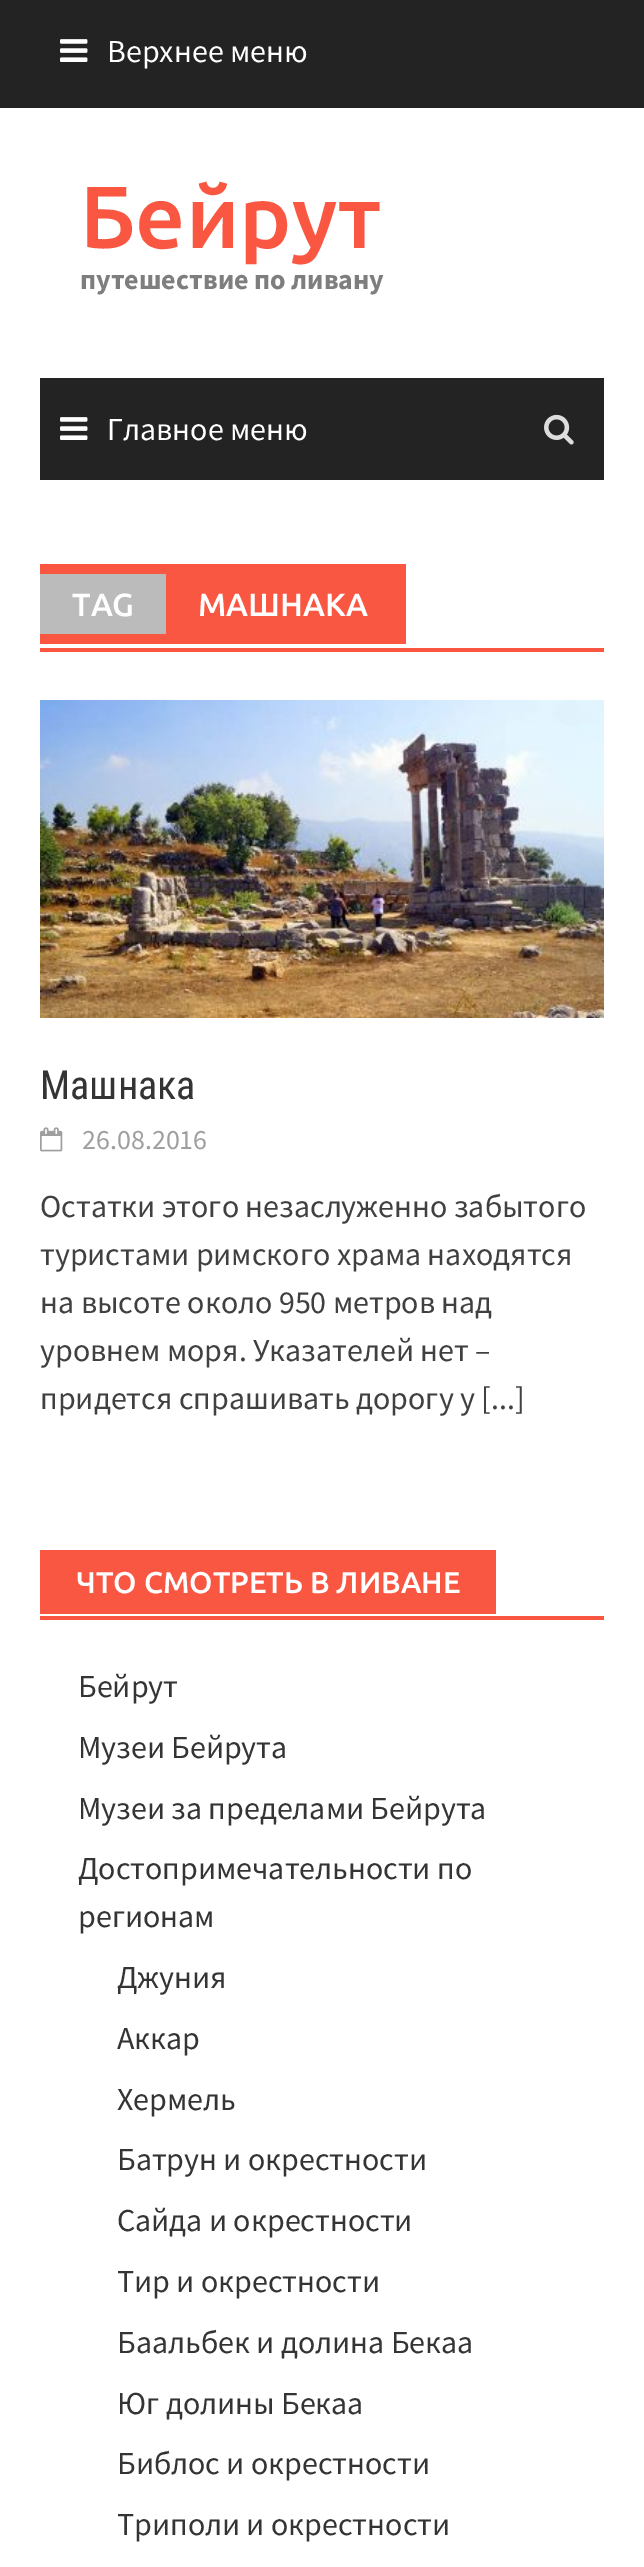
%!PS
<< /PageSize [644 2567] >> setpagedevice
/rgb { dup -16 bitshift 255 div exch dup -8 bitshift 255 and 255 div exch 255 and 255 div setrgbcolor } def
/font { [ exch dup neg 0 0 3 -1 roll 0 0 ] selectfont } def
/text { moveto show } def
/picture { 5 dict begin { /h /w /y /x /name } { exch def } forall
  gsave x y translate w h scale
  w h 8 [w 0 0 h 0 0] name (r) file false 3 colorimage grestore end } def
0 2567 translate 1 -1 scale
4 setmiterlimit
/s1 { /SourceSansPro-Regular 32 font 16#FFFFFF rgb } def
/s2 { /Ubuntu-Medium 88 font 16#FA5742 rgb } def
/s3 { /SourceSansPro-Bold 28 font 16#7E7E7E rgb } def
/s4 { /Ubuntu-Medium 32 font 16#FFFFFF rgb } def
/s5 { /RobotoCondensed-Regular 40 font 16#353434 rgb } def
/s6 { /SourceSansPro-Regular 28 font 16#9F9F9F rgb } def
/s7 { /SourceSansPro-Regular 32 font 16#404040 rgb } def
/s8 { /Ubuntu-Medium 30 font 16#FFFFFF rgb } def
/s9 { /SourceSansPro-Regular 32 font 16#353434 rgb } def
16#FFFFFF rgb
0 0 644 2567 rectfill
16#232323 rgb
0 0 644 108 rectfill
(pic1.raw) 60 39 28 23 picture
s1
(Верхнее меню) 107 62 text
s2
(Бейрут) 80 248 text
s3
(путешествие по ливану) 80 289 text
16#232323 rgb
40 378 564 102 rectfill
(pic1.raw) 60 417 28 23 picture
s1
(Главное меню) 107 440 text
(pic2.raw) 544 414 30 31 picture
16#FA5742 rgb
40 648 564 4 rectfill
40 564 366 80 rectfill
16#BBBBBB rgb
40 574 126 60 rectfill
s4
(TAG) 72 616 text
(МАШНАКА) 198 616 text
(pic3.raw) 40 700 564 318 picture
s5
(Машнака) 40 1099 text
(pic4.raw) 40 1127 23 25 picture
s6
(26.08.2016) 82 1149 text
s7
(Остатки этого незаслуженно забытого) 40 1217 text
(туристами римского храма находятся) 40 1265 text
(на высоте около 950 метров над) 40 1313 text
(уровнем моря. Указателей нет –) 40 1361 text
(придется спрашивать дорогу у [...]) 40 1409 text
16#FA5742 rgb
40 1616 564 4 rectfill
40 1550 456 64 rectfill
s8
(ЧТО СМОТРЕТЬ В ЛИВАНЕ) 76 1593 text
s9
(Бейрут) 78 1697 text
(Музеи Бейрута) 78 1758 text
(Музеи за пределами Бейрута) 78 1819 text
(Достопримечательности по) 78 1879 text
(регионам) 78 1927 text
(Джуния) 117 1988 text
(Аккар) 117 2049 text
(Хермель) 117 2110 text
(Батрун и окрестности) 117 2170 text
(Сайда и окрестности) 117 2231 text
(Тир и окрестности) 117 2292 text
(Баальбек и долина Бекаа) 117 2353 text
(Юг долины Бекаа) 117 2414 text
(Библос и окрестности) 117 2474 text
(Триполи и окрестности) 117 2535 text
showpage
